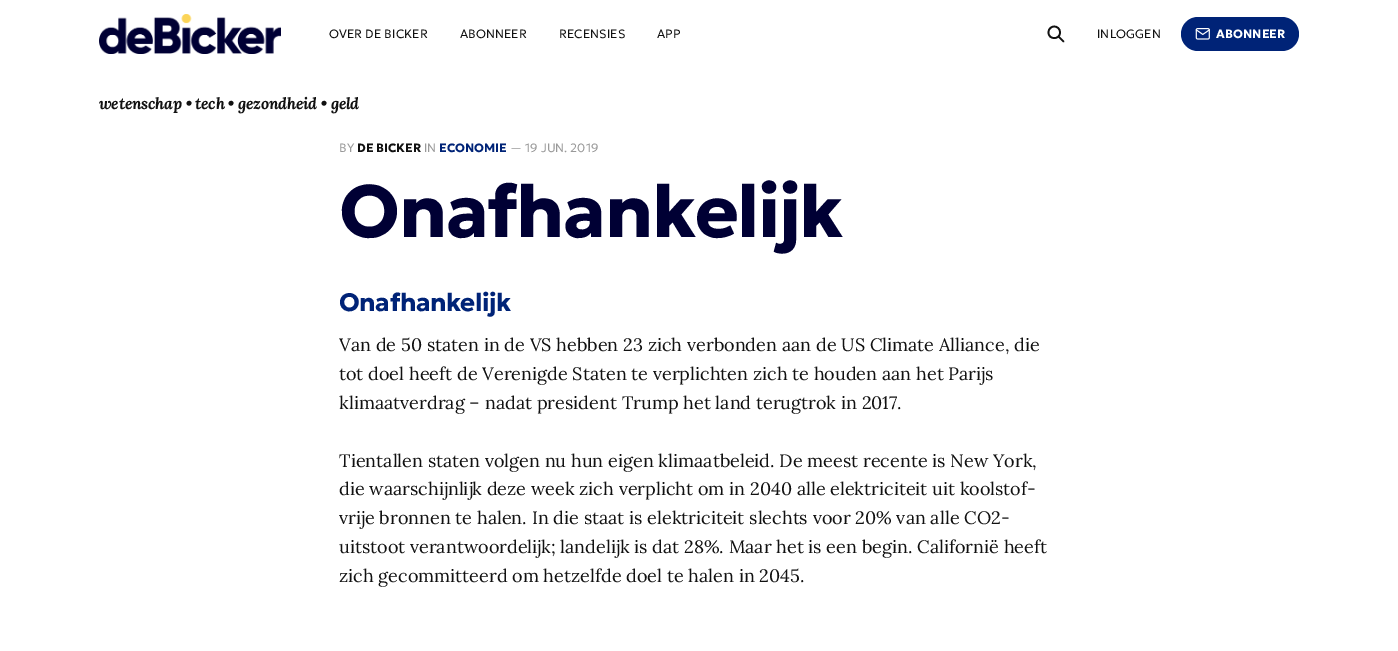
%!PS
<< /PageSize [1398 651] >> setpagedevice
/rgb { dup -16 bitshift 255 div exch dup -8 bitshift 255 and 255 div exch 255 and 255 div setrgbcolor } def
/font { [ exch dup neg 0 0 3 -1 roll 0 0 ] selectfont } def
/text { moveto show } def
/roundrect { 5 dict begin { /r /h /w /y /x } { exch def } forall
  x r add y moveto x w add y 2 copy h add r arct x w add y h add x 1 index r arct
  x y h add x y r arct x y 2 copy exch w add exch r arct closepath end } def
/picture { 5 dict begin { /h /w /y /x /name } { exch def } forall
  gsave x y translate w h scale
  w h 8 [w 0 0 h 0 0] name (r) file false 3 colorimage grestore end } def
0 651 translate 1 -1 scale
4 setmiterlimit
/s1 { /Geologica-Light 12 font 16#999999 rgb } def
/s2 { /Geologica-Bold 12 font 16#111111 rgb } def
/s3 { /Geologica-Bold 12 font 16#002377 rgb } def
/s4 { /Lora-Regular 18 font 16#111111 rgb } def
16#FFFFFF rgb
0 0 1398 651 rectfill
(pic1.raw) 99 14 182 40 picture
/Geologica-Light 12 font
16#111111 rgb
329 38 moveto 0.1 0 (OVER DE BICKER) ashow
460 38 moveto 0.1 0 (ABONNEER) ashow
559 38 moveto 0.1 0 (RECENSIES) ashow
657 38 moveto 0.1 0 (APP) ashow
1.7 setlinewidth
1 setlinecap
1 setlinejoin
1063.5 41.5 moveto 1058.5 36.5 lineto 1060 32.5 moveto 1060 40 1048.5 40 1048.5 32.5 curveto 1048.5 24.5 1060 24.5 1060 32.5 curveto closepath stroke
1097 38 moveto 0.1 0 (INLOGGEN) ashow
16#002377 rgb
1181 17 118 34 17 roundrect fill
(pic2.raw) 1195 28 15 12 picture
/Geologica-Bold 12 font
16#FFFFFF rgb
1216 38 moveto 0.1 0 (ABONNEER) ashow
/Lora-BoldItalic 16 font
16#111111 rgb
99 109 moveto -0.3 0 (wetenschap • tech • gezondheid • geld) ashow
s1
(BY) 339 152 text
s2
(DE BICKER) 357 152 text
s1
(IN) 424 152 text
s3
(ECONOMIE) 439 152 text
s1
(— 19 JUN. 2019) 510 152 text
/Geologica-Bold 74 font
16#000034 rgb
339 237 moveto -1.5 0 (Onafhankelijk) ashow
/Geologica-Bold 25.25 font
16#002377 rgb
339 311 moveto -0.5 0 (Onafhankelijk) ashow
s4
(Van de 50 staten in de VS hebben 23 zich verbonden aan de US Climate Alliance, die) 339 351 text
(tot doel heeft de Verenigde Staten te verplichten zich te houden aan het Parijs) 339 380 text
(klimaatverdrag – nadat president Trump het land terugtrok in 2017.) 339 409 text
(Tientallen staten volgen nu hun eigen klimaatbeleid. De meest recente is New York,) 339 467 text
(die waarschijnlijk deze week zich verplicht om in 2040 alle elektriciteit uit koolstof-) 339 495 text
(vrije bronnen te halen. In die staat is elektriciteit slechts voor 20% van alle CO2-) 339 524 text
(uitstoot verantwoordelijk; landelijk is dat 28%. Maar het is een begin. Californië heeft) 339 553 text
(zich gecommitteerd om hetzelfde doel te halen in 2045.) 339 582 text
showpage
